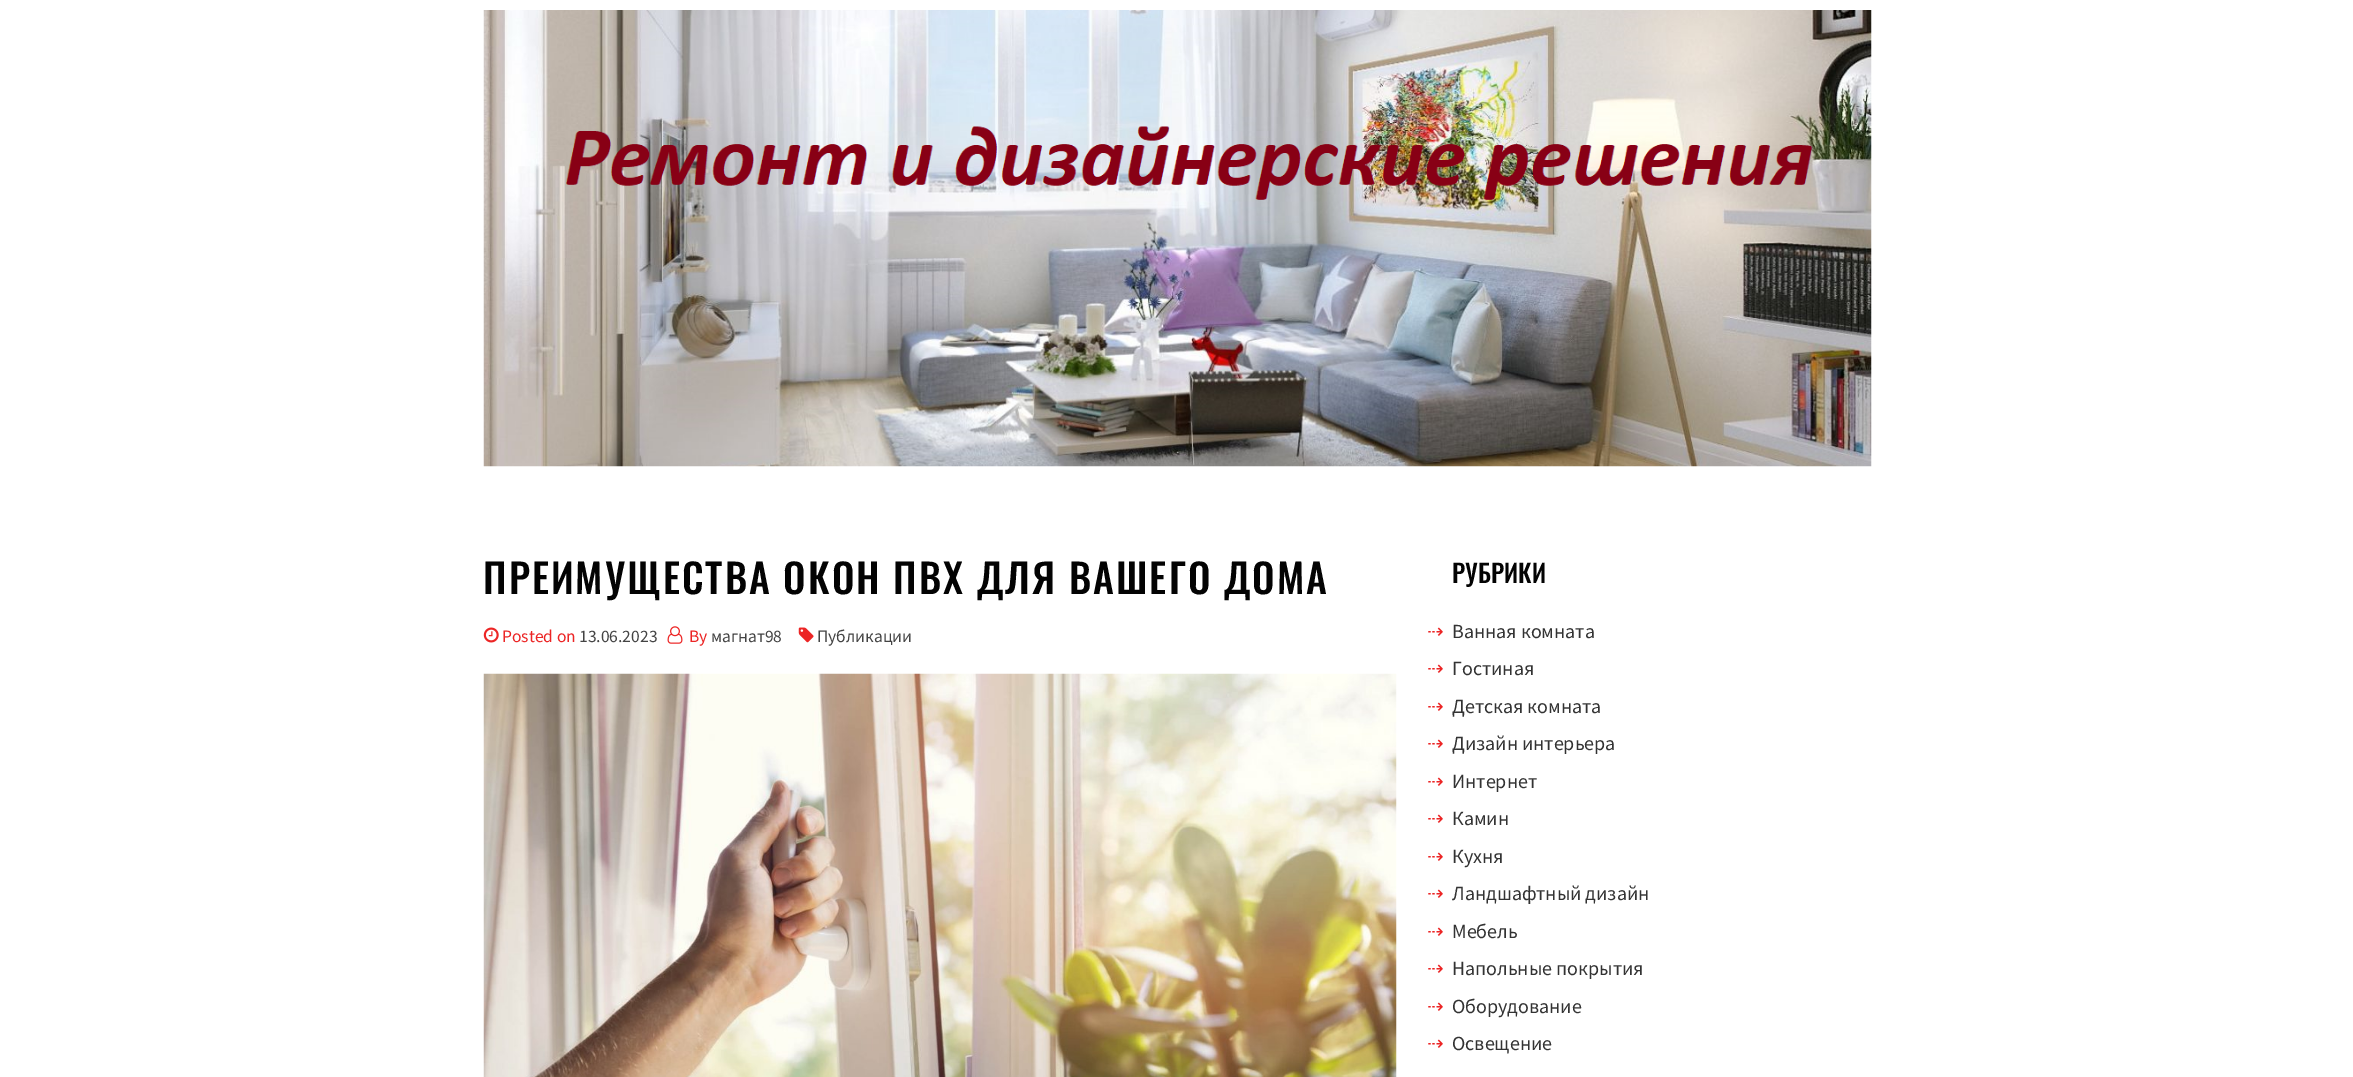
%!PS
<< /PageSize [2353 1077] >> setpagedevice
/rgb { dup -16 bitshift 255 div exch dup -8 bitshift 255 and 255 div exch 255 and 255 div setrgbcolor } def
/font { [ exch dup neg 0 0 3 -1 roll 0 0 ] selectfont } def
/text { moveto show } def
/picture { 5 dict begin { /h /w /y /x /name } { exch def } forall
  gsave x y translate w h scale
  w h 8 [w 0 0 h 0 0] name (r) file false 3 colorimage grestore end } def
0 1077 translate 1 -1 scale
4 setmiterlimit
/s1 { /SourceSansPro-Regular 17.5 font 16#EC2525 rgb } def
/s2 { /SourceSansPro-Regular 17.5 font 16#444444 rgb } def
/s3 { /Oswald-Medium 25 font 16#030303 rgb } def
/s4 { /DejaVuSans-Regular 20 font 16#EC2525 rgb } def
/s5 { /SourceSansPro-Regular 20 font 16#333333 rgb } def
16#FFFFFF rgb
0 0 2353 1077 rectfill
(pic1.raw) 483 10 1389 457 picture
/Oswald-Medium 40 font
16#030303 rgb
483 594 moveto 2 0 (ПРЕИМУЩЕСТВА ОКОН ПВХ ДЛЯ ВАШЕГО ДОМА) ashow
(pic2.raw) 483 627 16 16 picture
s1
(Posted on) 502 642 text
s2
(13.06.2023) 579 642 text
(pic3.raw) 667 626 16 18 picture
s1
(By) 689 642 text
s2
(магнат98) 711 642 text
(pic4.raw) 798 627 16 16 picture
(Публикации) 817 642 text
(pic5.raw) 483 673 914 404 picture
s3
(РУБРИКИ) 1452 583 text
s4
(⇢) 1427 638 text
s5
(Ванная комната) 1452 638 text
s4
(⇢) 1427 675 text
s5
(Гостиная) 1452 675 text
s4
(⇢) 1427 713 text
s5
(Детская комната) 1452 713 text
s4
(⇢) 1427 750 text
s5
(Дизайн интерьера) 1452 750 text
s4
(⇢) 1427 788 text
s5
(Интернет) 1452 788 text
s4
(⇢) 1427 825 text
s5
(Камин) 1452 825 text
s4
(⇢) 1427 863 text
s5
(Кухня) 1452 863 text
s4
(⇢) 1427 900 text
s5
(Ландшафтный дизайн) 1452 900 text
s4
(⇢) 1427 938 text
s5
(Мебель) 1452 938 text
s4
(⇢) 1427 975 text
s5
(Напольные покрытия) 1452 975 text
s4
(⇢) 1427 1013 text
s5
(Оборудование) 1452 1013 text
s4
(⇢) 1427 1050 text
s5
(Освещение) 1452 1050 text
showpage
